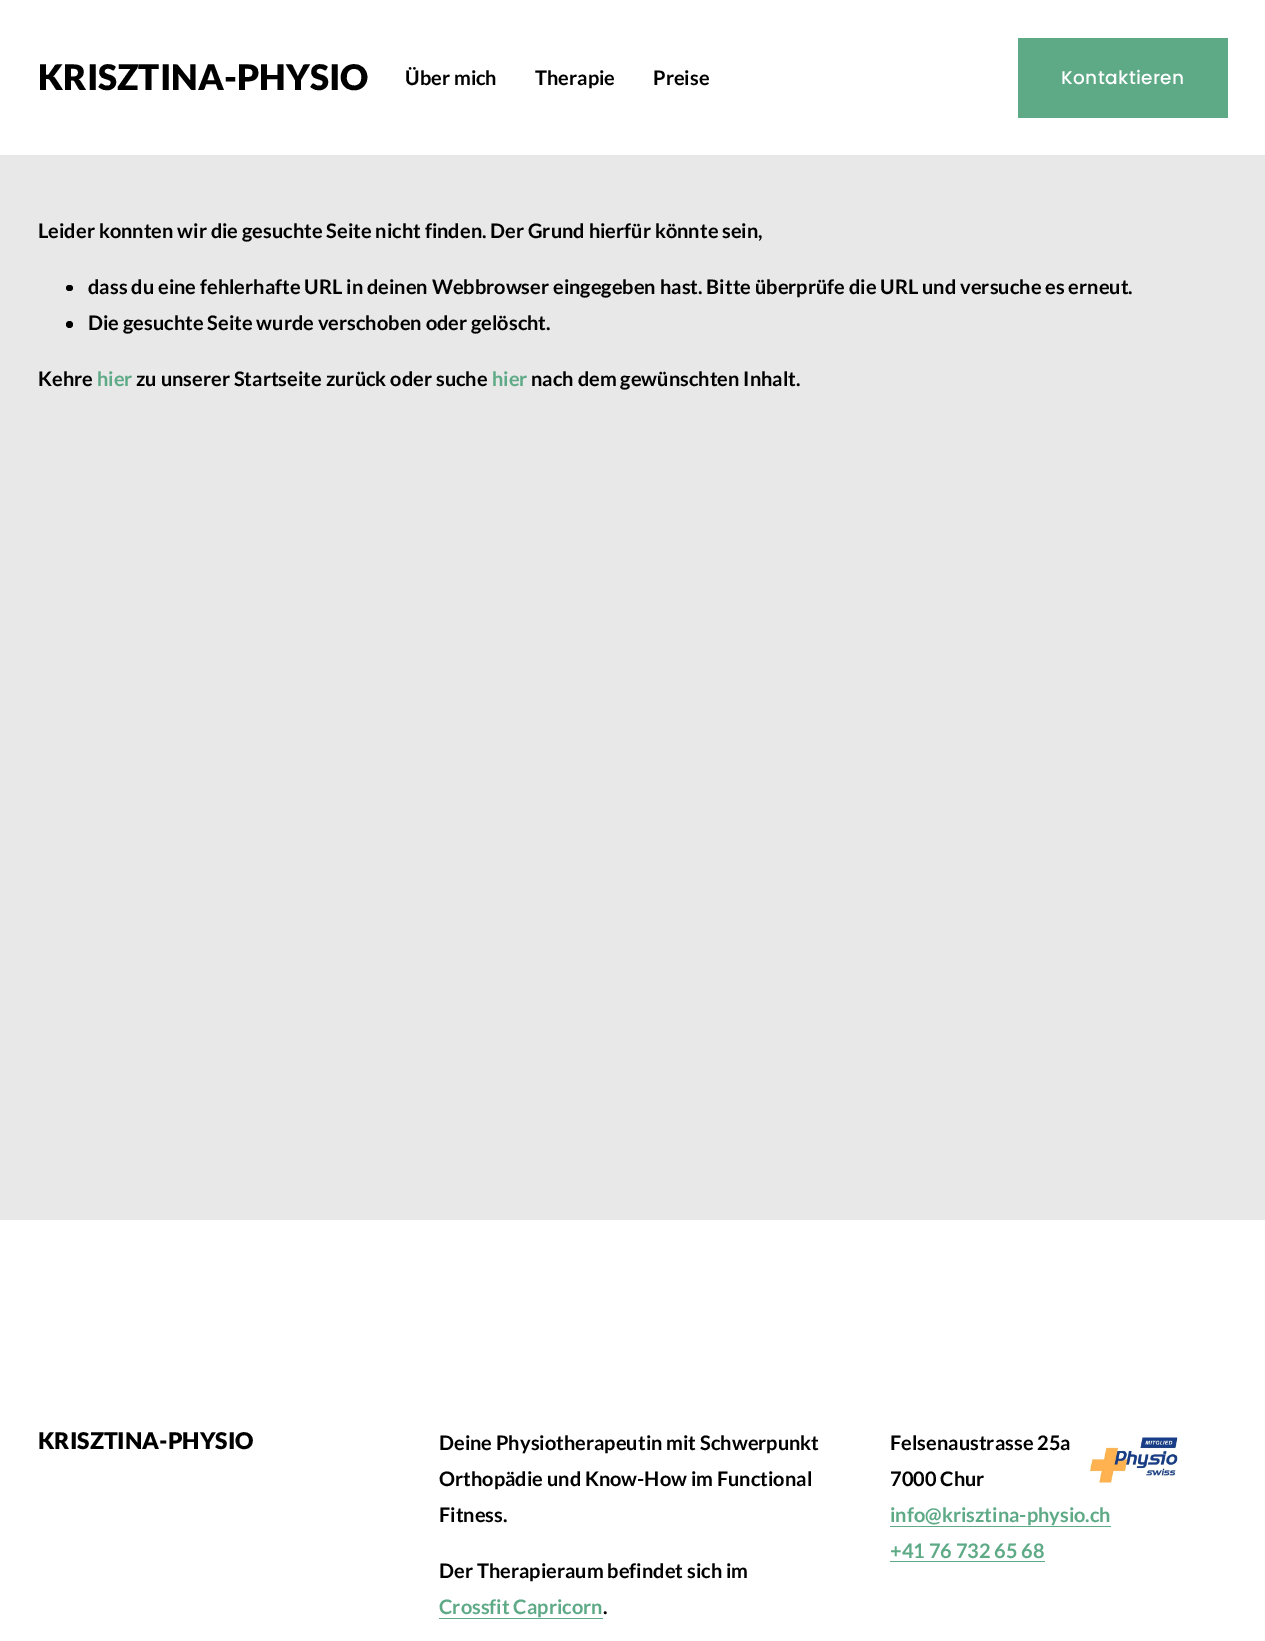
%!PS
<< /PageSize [1265 1641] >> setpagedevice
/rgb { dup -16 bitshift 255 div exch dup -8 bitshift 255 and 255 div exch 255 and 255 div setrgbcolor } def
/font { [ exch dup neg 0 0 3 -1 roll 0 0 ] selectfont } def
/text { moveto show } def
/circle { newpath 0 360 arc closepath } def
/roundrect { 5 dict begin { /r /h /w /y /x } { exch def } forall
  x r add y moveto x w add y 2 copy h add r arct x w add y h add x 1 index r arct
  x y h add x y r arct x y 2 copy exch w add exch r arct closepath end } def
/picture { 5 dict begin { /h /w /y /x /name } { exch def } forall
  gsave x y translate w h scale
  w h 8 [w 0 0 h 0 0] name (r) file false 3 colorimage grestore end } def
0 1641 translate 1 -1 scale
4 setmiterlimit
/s1 { /Lato-Black 35.25 font 16#000000 rgb } def
/s2 { /Lato-Bold 20 font 16#000000 rgb } def
/s3 { /Lato-Bold 20 font 16#5EAA87 rgb } def
/s4 { /Lato-Black 23 font 16#000000 rgb } def
16#E8E8E8 rgb
0 0 1265 1641 rectfill
16#FFFFFF rgb
0 0 1265 155 rectfill
s1
(KRISZTINA-PHYSIO) 38 90 text
s2
(Über mich) 405 85 text
(Therapie) 535 85 text
(Preise) 653 85 text
16#5EAA87 rgb
1018 38 210 80 rectfill
/Poppins-Medium 18.5 font
16#FFFFFF rgb
1061 84 moveto 0.4 0 (Kontaktieren) ashow
s2
(Leider konnten wir die gesuchte Seite nicht finden. Der Grund hierfür könnte sein,) 38 238 text
66 285 7 6 3 roundrect fill
(dass du eine fehlerhafte URL in deinen Webbrowser eingegeben hast. Bitte überprüfe die URL und versuche es erneut.) 88 294 text
69.5 324.5 3.5 circle fill
(Die gesuchte Seite wurde verschoben oder gelöscht.) 88 330 text
(Kehre) 38 386 text
s3
(hier) 97 386 text
s2
(zu unserer Startseite zurück oder suche) 136 386 text
s3
(hier) 492 386 text
s2
(nach dem gewünschten Inhalt.) 531 386 text
16#FFFFFF rgb
0 1220 1265 421 rectfill
s4
(KRISZTINA-PHYSIO) 38 1449 text
s2
(Deine Physiotherapeutin mit Schwerpunkt) 439 1450 text
(Orthopädie und Know-How im Functional) 439 1486 text
(Fitness.) 439 1522 text
(Der Therapieraum befindet sich im) 439 1578 text
s3
(Crossfit Capricorn) 439 1614 text
439 1618 164 1 rectfill
s2
(.) 603 1614 text
(Felsenaustrasse 25a) 890 1450 text
(7000 Chur) 890 1486 text
s3
(info@krisztina-physio.ch) 890 1522 text
890 1526 221 1 rectfill
(+41 76 732 65 68) 890 1558 text
890 1561 155 1 rectfill
(pic1.raw) 1090 1437 88 46 picture
showpage
